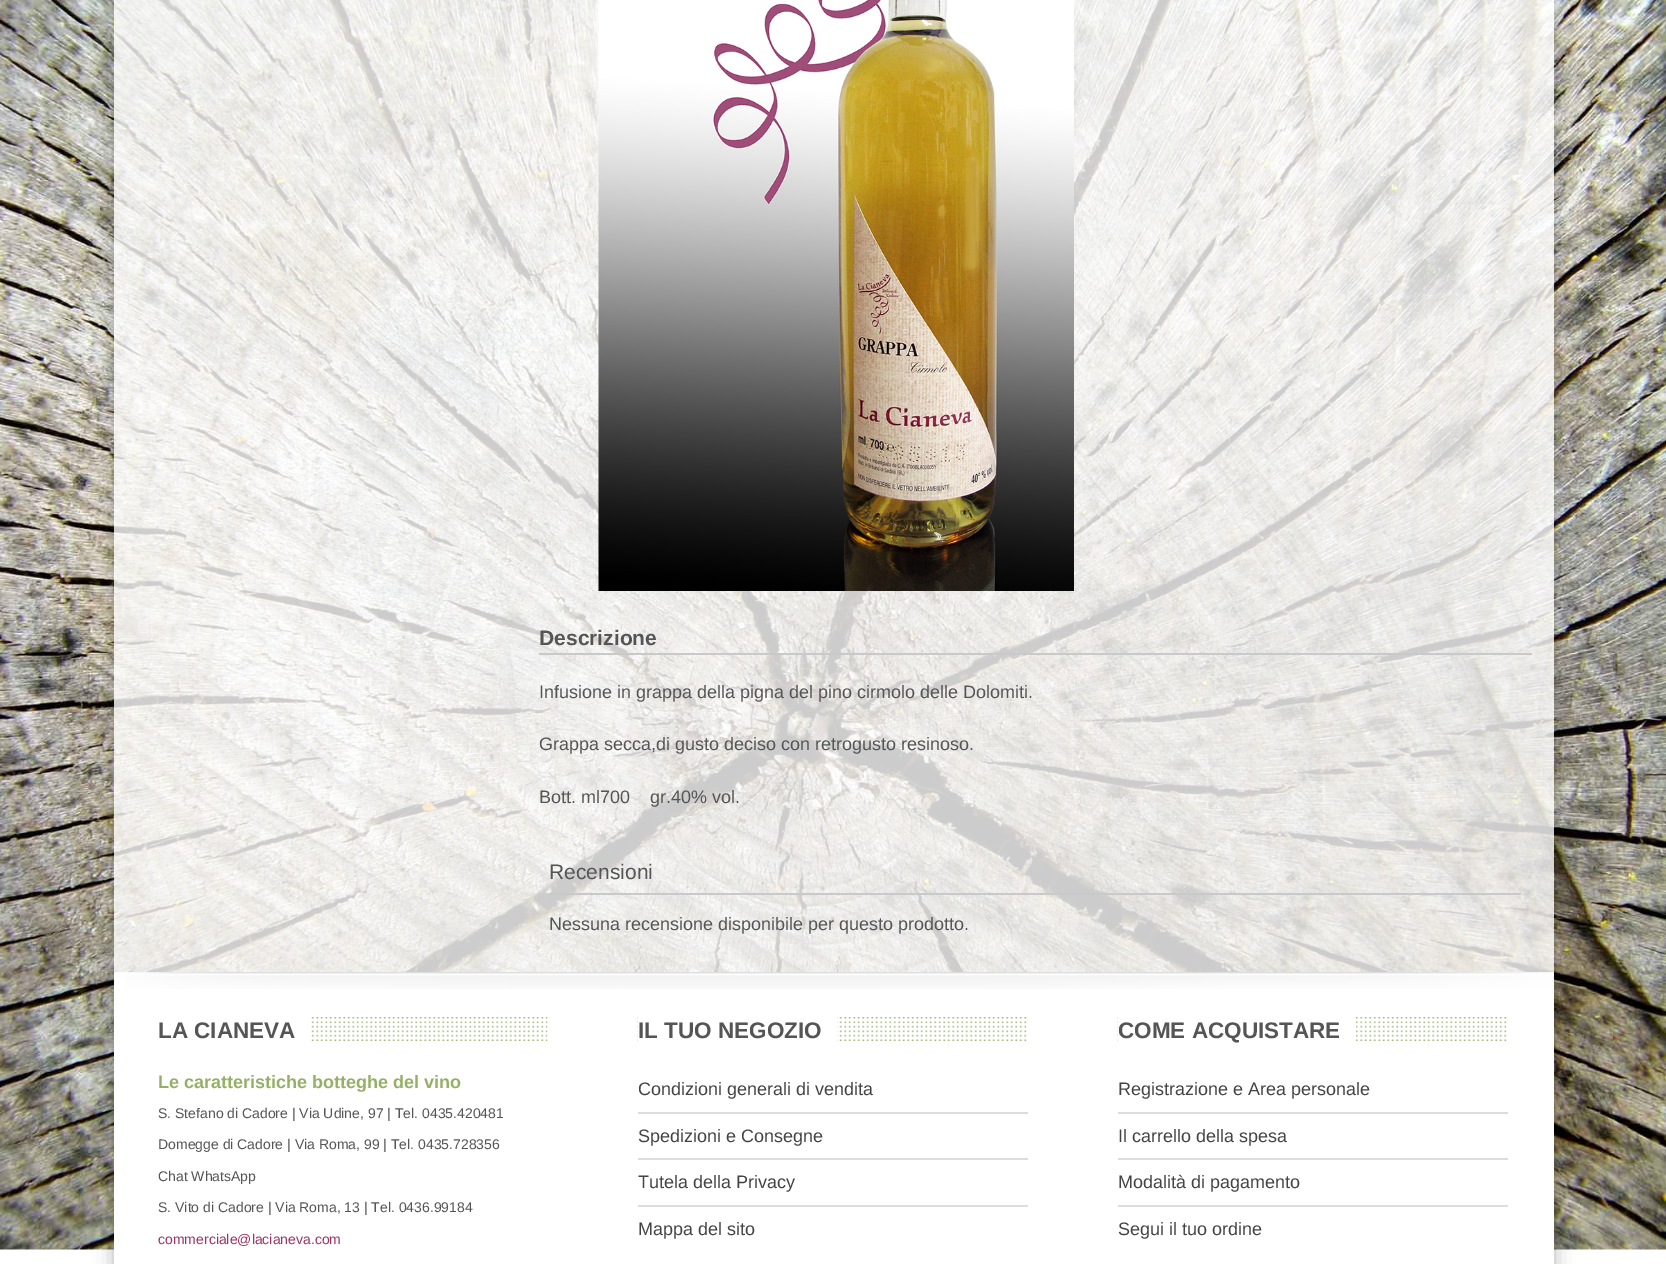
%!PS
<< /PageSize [1666 1264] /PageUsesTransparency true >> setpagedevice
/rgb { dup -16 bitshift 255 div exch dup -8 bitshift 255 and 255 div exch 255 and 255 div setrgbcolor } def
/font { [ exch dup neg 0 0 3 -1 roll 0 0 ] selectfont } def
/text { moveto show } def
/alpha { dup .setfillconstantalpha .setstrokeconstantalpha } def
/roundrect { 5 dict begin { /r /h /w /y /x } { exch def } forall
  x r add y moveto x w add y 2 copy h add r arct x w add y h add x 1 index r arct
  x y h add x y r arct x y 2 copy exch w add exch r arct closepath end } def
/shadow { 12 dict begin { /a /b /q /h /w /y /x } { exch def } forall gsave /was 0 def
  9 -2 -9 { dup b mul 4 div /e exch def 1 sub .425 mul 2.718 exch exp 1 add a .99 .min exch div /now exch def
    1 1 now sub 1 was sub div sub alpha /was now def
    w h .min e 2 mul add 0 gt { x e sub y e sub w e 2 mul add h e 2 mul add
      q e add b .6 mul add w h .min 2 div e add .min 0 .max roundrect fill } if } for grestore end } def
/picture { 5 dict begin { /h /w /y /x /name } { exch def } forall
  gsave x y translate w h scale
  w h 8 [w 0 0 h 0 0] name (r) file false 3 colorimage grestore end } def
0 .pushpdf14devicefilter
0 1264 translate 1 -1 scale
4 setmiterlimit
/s1 { /LiberationSans-Bold 21 font 16#555555 rgb } def
/s2 { /LiberationSans-Regular 18 font 16#555555 rgb } def
/s3 { /LiberationSans-Regular 21 font 16#555555 rgb } def
/s4 { /LiberationSans-Bold 22.5 font 16#555555 rgb } def
/s5 { /LiberationSans-Bold 18 font 16#96AF67 rgb } def
/s6 { /LiberationSans-Regular 14 font 16#555555 rgb } def
/s7 { /LiberationSans-Regular 14 font 16#993366 rgb } def
/s8 { /LiberationSans-Regular 18 font 16#444444 rgb } def
16#FFFFFF rgb
0 0 1666 1264 rectfill
(pic1.raw) 0 0 1666 1250 picture
gsave
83 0 moveto 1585 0 lineto 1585 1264 lineto 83 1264 lineto closepath 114 -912 moveto 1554 -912 lineto 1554 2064 lineto 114 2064 lineto closepath eoclip newpath
16#000000 rgb
114 -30 1440 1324 0 10 0.3 shadow
grestore
0.8 alpha
114 0 1440 972 rectfill
1 alpha
(pic2.raw) 598 0 476 591 picture
16#CAC9C9 rgb
539 653 993 2 rectfill
s1
(Descrizione) 539 645 text
s2
(Infusione in grappa della pigna del pino cirmolo delle Dolomiti.) 539 698 text
(Grappa secca,di gusto deciso con retrogusto resinoso.) 539 750 text
(Bott. ml700    gr.40% vol.) 539 803 text
16#CAC9C9 rgb
549 893 972 2 rectfill
s3
(Recensioni) 549 879 text
s2
(Nessuna recensione disponibile per questo prodotto.) 549 930 text
16#FFFFFF rgb
114 972 1440 278 rectfill
(pic3.raw) 124 972 1430 17 picture
(pic4.raw) 311 1017 237 24 picture
s4
(LA CIANEVA) 158 1038 text
s5
(Le caratteristiche botteghe del vino) 158 1088 text
s6
(S. Stefano di Cadore | Via Udine, 97 | Tel. 0435.420481) 158 1118 text
(Domegge di Cadore | Via Roma, 99 | Tel. 0435.728356) 158 1149 text
(Chat WhatsApp) 158 1181 text
(S. Vito di Cadore | Via Roma, 13 | Tel. 0436.99184) 158 1212 text
s7
(commerciale@lacianeva.com) 158 1244 text
(pic5.raw) 637 1017 390 24 picture
16#FFFFFF rgb
638 1017 199 24 rectfill
s4
(IL TUO NEGOZIO) 638 1038 text
s8
(Condizioni generali di vendita) 638 1095 text
16#DDDDDD rgb
638 1112 390 2 rectfill
s8
(Spedizioni e Consegne) 638 1142 text
16#DDDDDD rgb
638 1158 390 2 rectfill
s8
(Tutela della Privacy) 638 1188 text
16#DDDDDD rgb
638 1205 390 2 rectfill
s8
(Mappa del sito) 638 1235 text
(pic6.raw) 1117 1017 390 24 picture
16#FFFFFF rgb
1118 1017 238 24 rectfill
s4
(COME ACQUISTARE) 1118 1038 text
s8
(Registrazione e Area personale) 1118 1095 text
16#DDDDDD rgb
1118 1112 390 2 rectfill
s8
(Il carrello della spesa) 1118 1142 text
16#DDDDDD rgb
1118 1158 390 2 rectfill
s8
(Modalità di pagamento) 1118 1188 text
16#DDDDDD rgb
1118 1205 390 2 rectfill
s8
(Segui il tuo ordine) 1118 1235 text
.poppdf14devicefilter showpage
